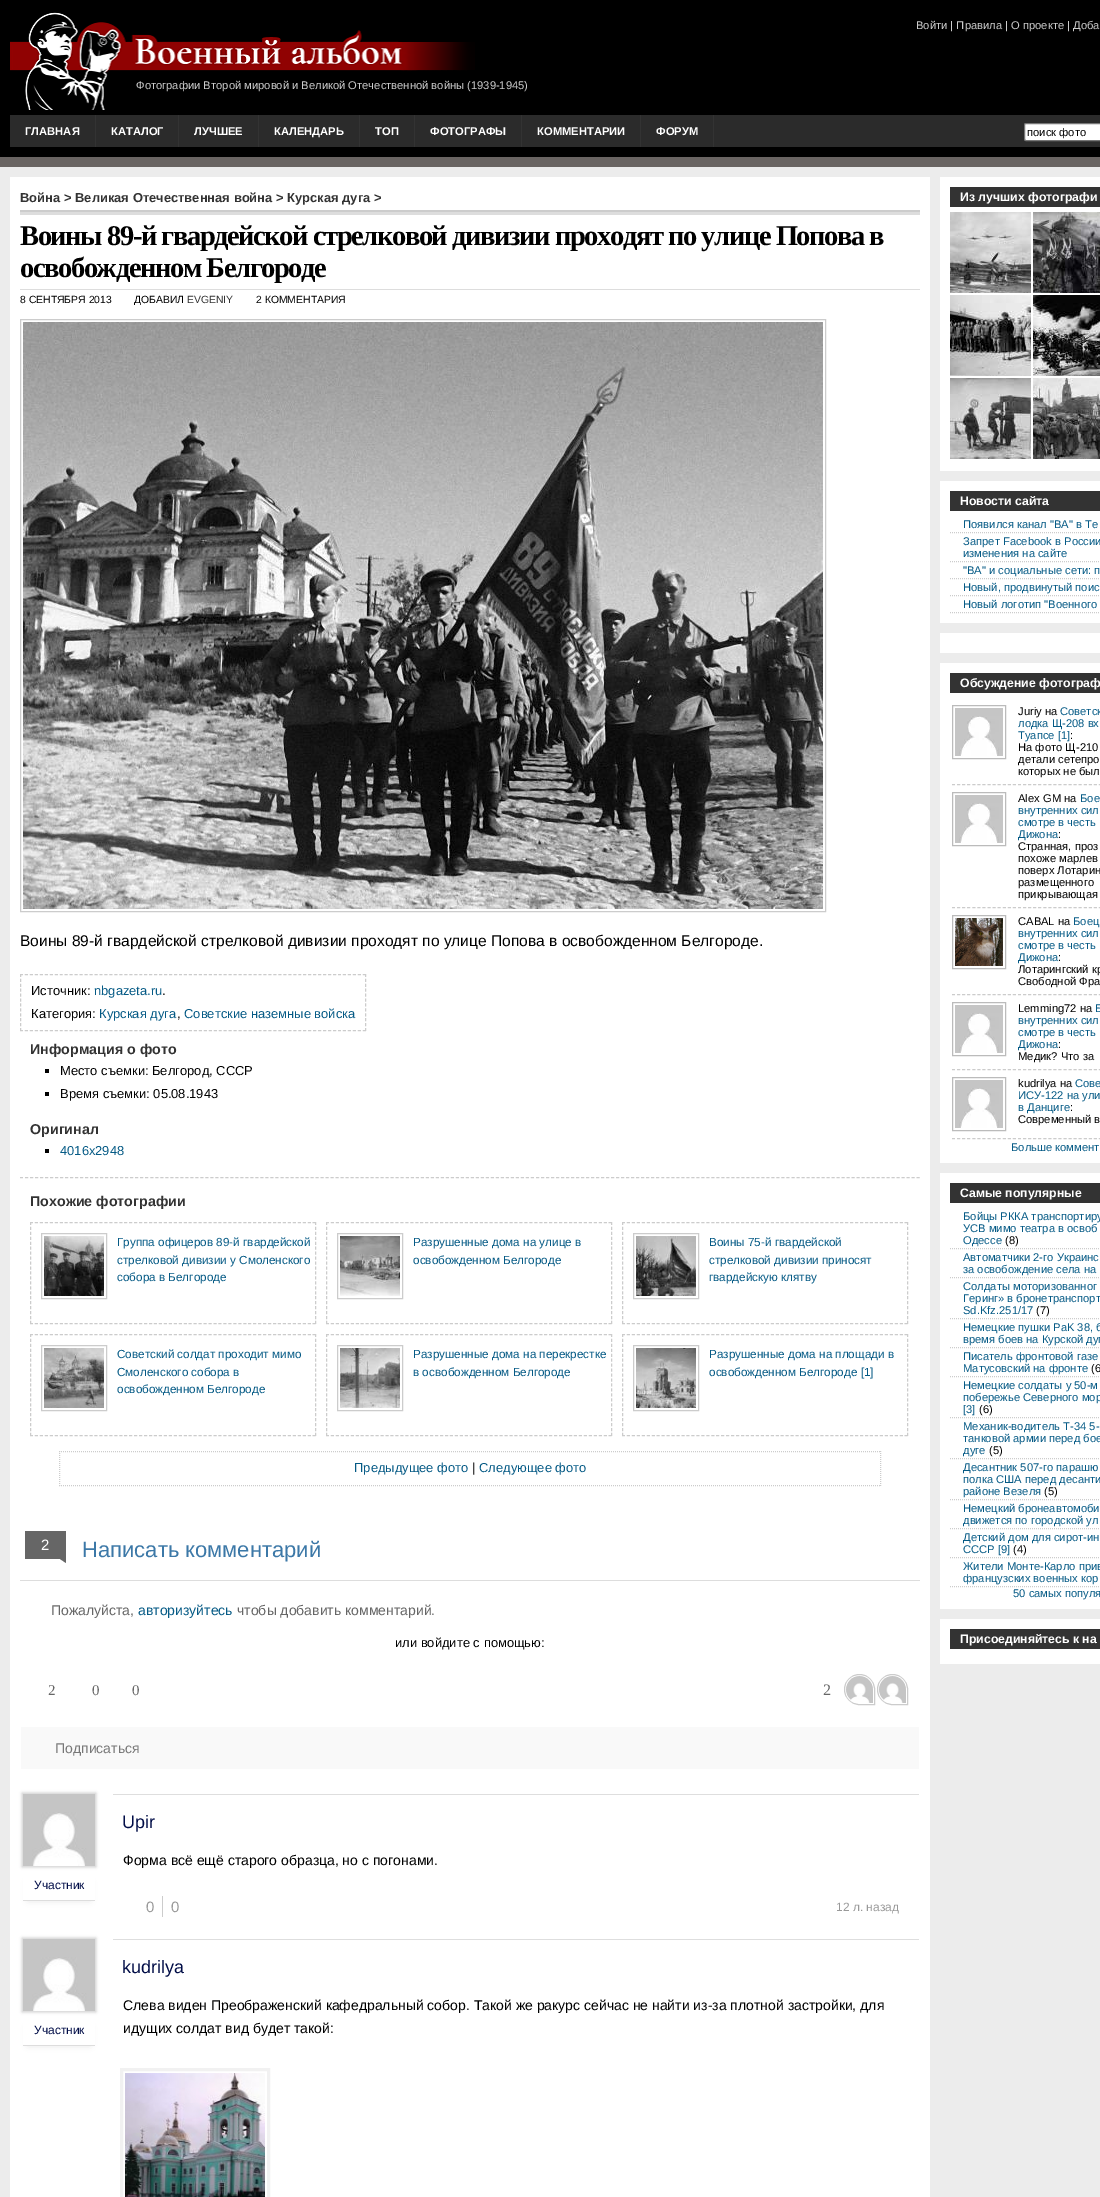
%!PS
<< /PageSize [1100 2197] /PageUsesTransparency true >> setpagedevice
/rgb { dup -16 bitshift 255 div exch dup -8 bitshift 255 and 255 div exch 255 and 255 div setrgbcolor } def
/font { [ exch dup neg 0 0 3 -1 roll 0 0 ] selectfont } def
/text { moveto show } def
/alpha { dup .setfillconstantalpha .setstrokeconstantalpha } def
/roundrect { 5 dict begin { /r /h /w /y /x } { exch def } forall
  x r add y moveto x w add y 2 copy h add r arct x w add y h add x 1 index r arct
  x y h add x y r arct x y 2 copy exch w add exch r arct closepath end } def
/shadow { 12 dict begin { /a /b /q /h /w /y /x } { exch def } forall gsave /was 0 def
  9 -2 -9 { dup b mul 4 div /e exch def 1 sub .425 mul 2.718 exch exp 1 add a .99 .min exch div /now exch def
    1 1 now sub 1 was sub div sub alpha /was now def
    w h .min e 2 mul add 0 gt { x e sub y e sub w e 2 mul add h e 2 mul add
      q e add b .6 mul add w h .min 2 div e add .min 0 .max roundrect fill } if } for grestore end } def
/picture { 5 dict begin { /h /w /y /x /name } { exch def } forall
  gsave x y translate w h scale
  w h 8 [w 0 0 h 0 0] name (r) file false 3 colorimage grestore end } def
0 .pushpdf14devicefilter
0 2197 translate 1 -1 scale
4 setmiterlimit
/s1 { /LiberationSans-Regular 11.2 font 16#CCCCCC rgb } def
/s2 { /LiberationSans-Bold 11.2 font 16#FFFFFF rgb } def
/s3 { /LiberationSans-Regular 11.2 font 16#000000 rgb } def
/s4 { /LiberationSans-Bold 12.95 font 16#333333 rgb } def
/s5 { /LiberationSans-Regular 10.4 font 16#000000 rgb } def
/s6 { /LiberationSans-Regular 10.4 font 16#333333 rgb } def
/s7 { /LiberationSans-Regular 15.55 font 16#000000 rgb } def
/s8 { /LiberationSans-Regular 12.95 font 16#000000 rgb } def
/s9 { /LiberationSans-Regular 12.95 font 16#055A85 rgb } def
/s10 { /LiberationSans-Bold 14.25 font 16#333333 rgb } def
/s11 { /LiberationSans-Regular 11.7 font 16#055A85 rgb } def
/s12 { /LiberationSans-Regular 15 font 16#FFFFFF rgb } def
/s13 { /LiberationSans-Regular 22 font 16#3C78A7 rgb } def
/s14 { /LiberationSans-Regular 14 font 16#666666 rgb } def
/s15 { /LiberationSans-Regular 14 font 16#055A85 rgb } def
/s16 { /LiberationSerif-Regular 15 font 16#666666 rgb } def
/s17 { /LiberationSerif-Regular 16 font 16#666666 rgb } def
/s18 { /LiberationSans-Regular 14 font 16#777777 rgb } def
/s19 { /LiberationSans-Regular 12 font 16#010D47 rgb } def
/s20 { /LiberationSans-Regular 18 font 16#010D47 rgb } def
/s21 { /LiberationSans-Regular 14 font 16#000000 rgb } def
/s22 { /LiberationSans-Regular 15 font 16#999999 rgb } def
/s23 { /LiberationSans-Regular 12 font 16#999999 rgb } def
/s24 { /LiberationSans-Bold 12.25 font 16#FFFFFF rgb } def
/s25 { /LiberationSans-Regular 11.2 font 16#055A85 rgb } def
16#696462 rgb
0 0 1100 2197 rectfill
16#000000 rgb
0 0 1100 157 rectfill
s1
(Войти | Правила | О проекте | Доба) 916 29 text
(pic1.raw) 10 12 465 98 picture
(Фотографии Второй мировой и Великой Отечественной войны \(1939-1945\)) 136 89 text
16#2B2B2B rgb
10 115 1090 32 rectfill
16#333333 rgb
95 115 1 32 rectfill
s2
(ГЛАВНАЯ) 25 135 text
16#333333 rgb
178 115 1 32 rectfill
s2
(КАТАЛОГ) 111 135 text
16#333333 rgb
258 115 1 32 rectfill
s2
(ЛУЧШЕЕ) 194 135 text
16#333333 rgb
359 115 1 32 rectfill
s2
(КАЛЕНДАРЬ) 274 135 text
16#333333 rgb
414 115 1 32 rectfill
s2
(ТОП) 375 135 text
16#333333 rgb
521 115 1 32 rectfill
s2
(ФОТОГРАФЫ) 430 135 text
16#333333 rgb
640 115 1 32 rectfill
s2
(КОММЕНТАРИИ) 537 135 text
16#333333 rgb
713 115 1 32 rectfill
s2
(ФОРУМ) 656 135 text
1024.5 123.5 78 17 1.5 roundrect gsave fill grestore
16#767676 rgb
stroke
s3
(поиск фото) 1027 136 text
16#ECECEC rgb
0 167 1100 2030 rectfill
16#FFFFFF rgb
10 177 920 2020 rectfill
16#CCCCCC rgb
20 210 900 2 rectfill
s4
(Война > Великая Отечественная война > Курская дуга >) 20 202 text
16#DDDDDD rgb
20 212 900 3 rectfill
20 289 900 1 rectfill
/LiberationSerif-Bold 28.5 font
16#000000 rgb
20 245 moveto -1.43 0 (Воины 89-й гвардейской стрелковой дивизии проходят по улице Попова в) ashow
20 277 moveto -1.43 0 (освобожденном Белгороде) ashow
s5
(8 СЕНТЯБРЯ 2013) 20 303 text
(ДОБАВИЛ) 134 303 text
s6
(EVGENIY) 187 303 text
s5
(2 КОММЕНТАРИЯ) 256 303 text
16#CCCCCC rgb
20.5 319.5 805 592 rectstroke
(pic2.raw) 23 322 800 587 picture
s7
(Воины 89-й гвардейской стрелковой дивизии проходят по улице Попова в освобожденном Белгороде.) 20 946 text
16#CCCCCC rgb
[3 1.97] 0 setdash
20 974.5 moveto 366 974.5 lineto stroke
[3 1.91] 0 setdash
365.5 974 moveto 365.5 1031 lineto stroke
[3 1.97] 0 setdash
20 1030.5 moveto 366 1030.5 lineto stroke
[3 1.91] 0 setdash
20.5 974 moveto 20.5 1031 lineto stroke
s8
(Источник:) 31 995 text
s9
(nbgazeta.ru) 94 995 text
s8
(.) 162 995 text
(Категория:) 31 1018 text
s9
(Курская дуга) 99 1018 text
s8
(,) 177 1018 text
s9
(Советские наземные войска) 184 1018 text
s10
(Информация о фото) 30 1054 text
16#000000 rgb
45 1069 4 4 rectfill
s8
(Место съемки: Белгород, СССР) 60 1075 text
45 1092 4 4 rectfill
(Время съемки: 05.08.1943) 60 1098 text
s10
(Оригинал) 30 1134 text
16#000000 rgb
45 1149 4 4 rectfill
s9
(4016x2948) 60 1155 text
16#CCCCCC rgb
[3 2.01] 0 setdash
20 1177.5 moveto 920 1177.5 lineto stroke
s10
(Похожие фотографии) 30 1206 text
16#CCCCCC rgb
[3 1.96] 0 setdash
30 1222.5 moveto 316 1222.5 lineto stroke
[3 1.95] 0 setdash
315.5 1222 moveto 315.5 1324 lineto stroke
[3 1.96] 0 setdash
30 1323.5 moveto 316 1323.5 lineto stroke
[3 1.95] 0 setdash
30.5 1222 moveto 30.5 1324 lineto stroke
[] 0 setdash
41.5 1233.5 65 65 rectstroke
(pic3.raw) 44 1236 60 60 picture
s11
(Группа офицеров 89-й гвардейской) 117 1246 text
(стрелковой дивизии у Смоленского) 117 1264 text
(собора в Белгороде) 117 1281 text
16#CCCCCC rgb
[3 1.96] 0 setdash
326 1222.5 moveto 612 1222.5 lineto stroke
[3 1.95] 0 setdash
611.5 1222 moveto 611.5 1324 lineto stroke
[3 1.96] 0 setdash
326 1323.5 moveto 612 1323.5 lineto stroke
[3 1.95] 0 setdash
326.5 1222 moveto 326.5 1324 lineto stroke
[] 0 setdash
337.5 1233.5 65 65 rectstroke
(pic4.raw) 340 1236 60 60 picture
s11
(Разрушенные дома на улице в) 413 1246 text
(освобожденном Белгороде) 413 1264 text
16#CCCCCC rgb
[3 1.96] 0 setdash
622 1222.5 moveto 908 1222.5 lineto stroke
[3 1.95] 0 setdash
907.5 1222 moveto 907.5 1324 lineto stroke
[3 1.96] 0 setdash
622 1323.5 moveto 908 1323.5 lineto stroke
[3 1.95] 0 setdash
622.5 1222 moveto 622.5 1324 lineto stroke
[] 0 setdash
633.5 1233.5 65 65 rectstroke
(pic5.raw) 636 1236 60 60 picture
s11
(Воины 75-й гвардейской) 709 1246 text
(стрелковой дивизии приносят) 709 1264 text
(гвардейскую клятву) 709 1281 text
16#CCCCCC rgb
[3 1.96] 0 setdash
30 1334.5 moveto 316 1334.5 lineto stroke
[3 1.95] 0 setdash
315.5 1334 moveto 315.5 1436 lineto stroke
[3 1.96] 0 setdash
30 1435.5 moveto 316 1435.5 lineto stroke
[3 1.95] 0 setdash
30.5 1334 moveto 30.5 1436 lineto stroke
[] 0 setdash
41.5 1345.5 65 65 rectstroke
(pic6.raw) 44 1348 60 60 picture
s11
(Советский солдат проходит мимо) 117 1358 text
(Смоленского собора в) 117 1376 text
(освобожденном Белгороде) 117 1393 text
16#CCCCCC rgb
[3 1.96] 0 setdash
326 1334.5 moveto 612 1334.5 lineto stroke
[3 1.95] 0 setdash
611.5 1334 moveto 611.5 1436 lineto stroke
[3 1.96] 0 setdash
326 1435.5 moveto 612 1435.5 lineto stroke
[3 1.95] 0 setdash
326.5 1334 moveto 326.5 1436 lineto stroke
[] 0 setdash
337.5 1345.5 65 65 rectstroke
(pic7.raw) 340 1348 60 60 picture
s11
(Разрушенные дома на перекрестке) 413 1358 text
(в освобожденном Белгороде) 413 1376 text
16#CCCCCC rgb
[3 1.96] 0 setdash
622 1334.5 moveto 908 1334.5 lineto stroke
[3 1.95] 0 setdash
907.5 1334 moveto 907.5 1436 lineto stroke
[3 1.96] 0 setdash
622 1435.5 moveto 908 1435.5 lineto stroke
[3 1.95] 0 setdash
622.5 1334 moveto 622.5 1436 lineto stroke
[] 0 setdash
633.5 1345.5 65 65 rectstroke
(pic8.raw) 636 1348 60 60 picture
s11
(Разрушенные дома на площади в) 709 1358 text
(освобожденном Белгороде [1]) 709 1376 text
16#CCCCCC rgb
[1 1] 0 setdash
59 1451.5 moveto 881 1451.5 lineto stroke
880.5 1451 moveto 880.5 1486 lineto stroke
59 1485.5 moveto 881 1485.5 lineto stroke
59.5 1451 moveto 59.5 1486 lineto stroke
s9
(Предыдущее фото) 354 1472 text
s8
(|) 472 1472 text
s9
(Следующее фото) 479 1472 text
16#666666 rgb
54 1555 moveto 66 1555 lineto 66 1563 lineto closepath fill
25 1531 41 28 rectfill
s12
(2) 41 1550 text
s13
(Написать комментарий) 82 1557 text
16#DDDDDD rgb
20 1580 900 1 rectfill
s14
(Пожалуйста,) 51 1615 text
s15
(авторизуйтесь) 138 1615 text
s14
(чтобы добавить комментарий.) 237 1615 text
s8
(или войдите с помощью:) 395 1647 text
s16
(2) 48 1695 text
(0) 92 1695 text
(0) 132 1695 text
s17
(2) 823 1695 text
16#CCCCCC rgb
[] 0 setdash
859.5 1674.5 moveto 868 1674.5 874.5 1681 874.5 1689.5 curveto 874.5 1704.5 lineto 859.5 1704.5 lineto 851 1704.5 844.5 1698 844.5 1689.5 curveto 844.5 1681 851 1674.5 859.5 1674.5 curveto closepath stroke
(pic9.raw) 846 1676 27 27 picture
892.5 1674.5 moveto 901 1674.5 907.5 1681 907.5 1689.5 curveto 907.5 1704.5 lineto 892.5 1704.5 lineto 884 1704.5 877.5 1698 877.5 1689.5 curveto 877.5 1681 884 1674.5 892.5 1674.5 curveto closepath stroke
(pic10.raw) 879 1676 27 27 picture
16#F9F9F9 rgb
21 1727 898 42 rectfill
s18
(Подписаться) 55 1753 text
16#000000 rgb
22 1793 74 74 0 1.5 0.2 shadow
(pic11.raw) 23 1794 72 72 picture
gsave
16 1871 moveto 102 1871 lineto 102 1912 lineto 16 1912 lineto closepath 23 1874 moveto 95 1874 lineto 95 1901 lineto 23 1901 lineto closepath eoclip newpath
16#DBDBDB rgb
28 1883 62 17 0 3.5 1 shadow
grestore
16#DDDDDD rgb
23 1900 72 1 rectfill
s19
(Участник) 34 1889 text
16#DEDEDE rgb
113 1794 806 1 rectfill
s20
(Upir) 122 1828 text
s21
(Форма всё ещё старого образца, но с погонами.) 123 1865 text
16#CCCCCC rgb
162 1896 1 21 rectfill
s22
(0) 146 1912 text
(0) 171 1912 text
s23
(12 л. назад) 836 1911 text
16#000000 rgb
22 1938 74 74 0 1.5 0.2 shadow
(pic11.raw) 23 1939 72 72 picture
gsave
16 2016 moveto 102 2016 lineto 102 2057 lineto 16 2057 lineto closepath 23 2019 moveto 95 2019 lineto 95 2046 lineto 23 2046 lineto closepath eoclip newpath
16#DBDBDB rgb
28 2028 62 17 0 3.5 1 shadow
grestore
16#DDDDDD rgb
23 2045 72 1 rectfill
s19
(Участник) 34 2034 text
16#DEDEDE rgb
113 1939 806 1 rectfill
s20
(kudrilya) 122 1973 text
s21
(Слева виден Преображенский кафедральный собор. Такой же ракурс сейчас не найти из-за плотной застройки, для) 123 2010 text
(идущих солдат вид будет такой:) 123 2033 text
16#F1F1F1 rgb
3 setlinewidth
121.5 2069.5 147 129 rectstroke
(pic12.raw) 125 2073 140 124 picture
16#FFFFFF rgb
940 177 160 294 rectfill
16#333333 rgb
950 187 150 20 rectfill
s24
(Из лучших фотографи) 960 201 text
(pic13.raw) 950 212 81 81 picture
(pic14.raw) 1033 212 67 81 picture
(pic15.raw) 950 295 81 81 picture
(pic16.raw) 1033 295 67 81 picture
(pic17.raw) 950 378 81 81 picture
(pic18.raw) 1033 378 67 81 picture
940 481 160 142 rectfill
16#333333 rgb
950 491 150 20 rectfill
s24
(Новости сайта) 960 505 text
16#CCCCCC rgb
1 setlinewidth
[1 1] 0 setdash
950 532.5 moveto 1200 532.5 lineto stroke
s25
(Появился канал "ВА" в Те) 963 528 text
16#CCCCCC rgb
950 561.5 moveto 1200 561.5 lineto stroke
s25
(Запрет Facebook в России) 963 545 text
(изменения на сайте) 963 557 text
16#CCCCCC rgb
950 578.5 moveto 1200 578.5 lineto stroke
s25
("ВА" и социальные сети: п) 963 574 text
16#CCCCCC rgb
950 595.5 moveto 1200 595.5 lineto stroke
s25
(Новый, продвинутый поис) 963 591 text
16#CCCCCC rgb
950 612.5 moveto 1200 612.5 lineto stroke
s25
(Новый логотип "Военного) 963 608 text
16#FFFFFF rgb
940 633 160 20 rectfill
940 663 160 500 rectfill
16#333333 rgb
950 673 150 20 rectfill
s24
(Обсуждение фотограф) 960 687 text
16#CCCCCC rgb
[3 2.08] 0 setdash
952 784.5 moveto 1016 784.5 lineto stroke
16#BBBBBB rgb
[] 0 setdash
952.5 705.5 53 53 rectstroke
(pic19.raw) 955 708 48 48 picture
16#CCCCCC rgb
[3 2.06] 0 setdash
1018 784.5 moveto 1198 784.5 lineto stroke
s3
(Juriy на) 1018 715 text
s25
(Советск) 1060 715 text
(лодка Щ-208 вх) 1018 727 text
(Туапсе [1]) 1018 739 text
s3
(:) 1070 739 text
(На фото Щ-210) 1018 751 text
(детали сетепро) 1018 763 text
(которых не был) 1018 775 text
16#CCCCCC rgb
[3 2.08] 0 setdash
952 907.5 moveto 1016 907.5 lineto stroke
16#BBBBBB rgb
[] 0 setdash
952.5 792.5 53 53 rectstroke
(pic19.raw) 955 795 48 48 picture
16#CCCCCC rgb
[3 2.06] 0 setdash
1018 907.5 moveto 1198 907.5 lineto stroke
s3
(Alex GM на) 1018 802 text
s25
(Бое) 1080 802 text
(внутренних сил) 1018 814 text
(смотре в честь) 1018 826 text
(Дижона) 1018 838 text
s3
(:) 1058 838 text
(Странная, проз) 1018 850 text
(похоже марлев) 1018 862 text
(поверх Лотарин) 1018 874 text
(размещенного) 1018 886 text
(прикрывающая) 1018 898 text
16#CCCCCC rgb
[3 2.08] 0 setdash
952 994.5 moveto 1016 994.5 lineto stroke
16#BBBBBB rgb
[] 0 setdash
952.5 915.5 53 53 rectstroke
(pic20.raw) 955 918 48 48 picture
16#CCCCCC rgb
[3 2.06] 0 setdash
1018 994.5 moveto 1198 994.5 lineto stroke
s3
(CABAL на) 1018 925 text
s25
(Боец) 1073 925 text
(внутренних сил) 1018 937 text
(смотре в честь) 1018 949 text
(Дижона) 1018 961 text
s3
(:) 1058 961 text
(Лотарингский кр) 1018 973 text
(Свободной Фра) 1018 985 text
16#CCCCCC rgb
[3 2.08] 0 setdash
952 1069.5 moveto 1016 1069.5 lineto stroke
16#BBBBBB rgb
[] 0 setdash
952.5 1002.5 53 53 rectstroke
(pic19.raw) 955 1005 48 48 picture
16#CCCCCC rgb
[3 2.06] 0 setdash
1018 1069.5 moveto 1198 1069.5 lineto stroke
s3
(Lemming72 на) 1018 1012 text
s25
(Б) 1095 1012 text
(внутренних сил) 1018 1024 text
(смотре в честь) 1018 1036 text
(Дижона) 1018 1048 text
s3
(:) 1058 1048 text
(Медик? Что за) 1018 1060 text
16#CCCCCC rgb
[3 2.08] 0 setdash
952 1138.5 moveto 1016 1138.5 lineto stroke
16#BBBBBB rgb
[] 0 setdash
952.5 1077.5 53 53 rectstroke
(pic19.raw) 955 1080 48 48 picture
16#CCCCCC rgb
[3 2.06] 0 setdash
1018 1138.5 moveto 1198 1138.5 lineto stroke
s3
(kudrilya на) 1018 1087 text
s25
(Сове) 1075 1087 text
(ИСУ-122 на ули) 1018 1099 text
(в Данциге) 1018 1111 text
s3
(:) 1070 1111 text
(Современный в) 1018 1123 text
s25
(Больше коммент) 1011 1151 text
16#FFFFFF rgb
940 1173 160 436 rectfill
16#333333 rgb
950 1183 150 20 rectfill
s24
(Самые популярные) 960 1197 text
16#CCCCCC rgb
[1 1] 0 setdash
950 1248.5 moveto 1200 1248.5 lineto stroke
s25
(Бойцы РККА транспортиру) 963 1220 text
(УСВ мимо театра в освоб) 963 1232 text
(Одессе) 963 1244 text
s3
(\(8\)) 1005 1244 text
16#CCCCCC rgb
950 1277.5 moveto 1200 1277.5 lineto stroke
s25
(Автоматчики 2-го Украинс) 963 1261 text
(за освобождение села на) 963 1273 text
16#CCCCCC rgb
950 1318.5 moveto 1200 1318.5 lineto stroke
s25
(Солдаты моторизованног) 963 1290 text
(Геринг» в бронетранспорт) 963 1302 text
(Sd.Kfz.251/17) 963 1314 text
s3
(\(7\)) 1036 1314 text
16#CCCCCC rgb
950 1347.5 moveto 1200 1347.5 lineto stroke
s25
(Немецкие пушки PaK 38, б) 963 1331 text
(время боев на Курской дуг) 963 1343 text
16#CCCCCC rgb
950 1376.5 moveto 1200 1376.5 lineto stroke
s25
(Писатель фронтовой газе) 963 1360 text
(Матусовский на фронте) 963 1372 text
s3
(\(6) 1091 1372 text
16#CCCCCC rgb
950 1417.5 moveto 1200 1417.5 lineto stroke
s25
(Немецкие солдаты у 50-м) 963 1389 text
(побережье Северного мор) 963 1401 text
([3]) 963 1413 text
s3
(\(6\)) 979 1413 text
16#CCCCCC rgb
950 1458.5 moveto 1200 1458.5 lineto stroke
s25
(Механик-водитель Т-34 5-) 963 1430 text
(танковой армии перед бое) 963 1442 text
(дуге) 963 1454 text
s3
(\(5\)) 989 1454 text
16#CCCCCC rgb
950 1499.5 moveto 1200 1499.5 lineto stroke
s25
(Десантник 507-го парашю) 963 1471 text
(полка США перед десанти) 963 1483 text
(районе Везеля) 963 1495 text
s3
(\(5\)) 1044 1495 text
16#CCCCCC rgb
950 1528.5 moveto 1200 1528.5 lineto stroke
s25
(Немецкий бронеавтомоби) 963 1512 text
(движется по городской ул) 963 1524 text
16#CCCCCC rgb
950 1557.5 moveto 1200 1557.5 lineto stroke
s25
(Детский дом для сирот-ин) 963 1541 text
(СССР [9]) 963 1553 text
s3
(\(4\)) 1013 1553 text
16#CCCCCC rgb
950 1586.5 moveto 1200 1586.5 lineto stroke
s25
(Жители Монте-Карло прив) 963 1570 text
(французских военных кор) 963 1582 text
(50 самых популя) 1013 1597 text
16#FFFFFF rgb
940 1619 160 45 rectfill
16#333333 rgb
950 1629 150 20 rectfill
s24
(Присоединяйтесь к на) 960 1643 text
.poppdf14devicefilter showpage
